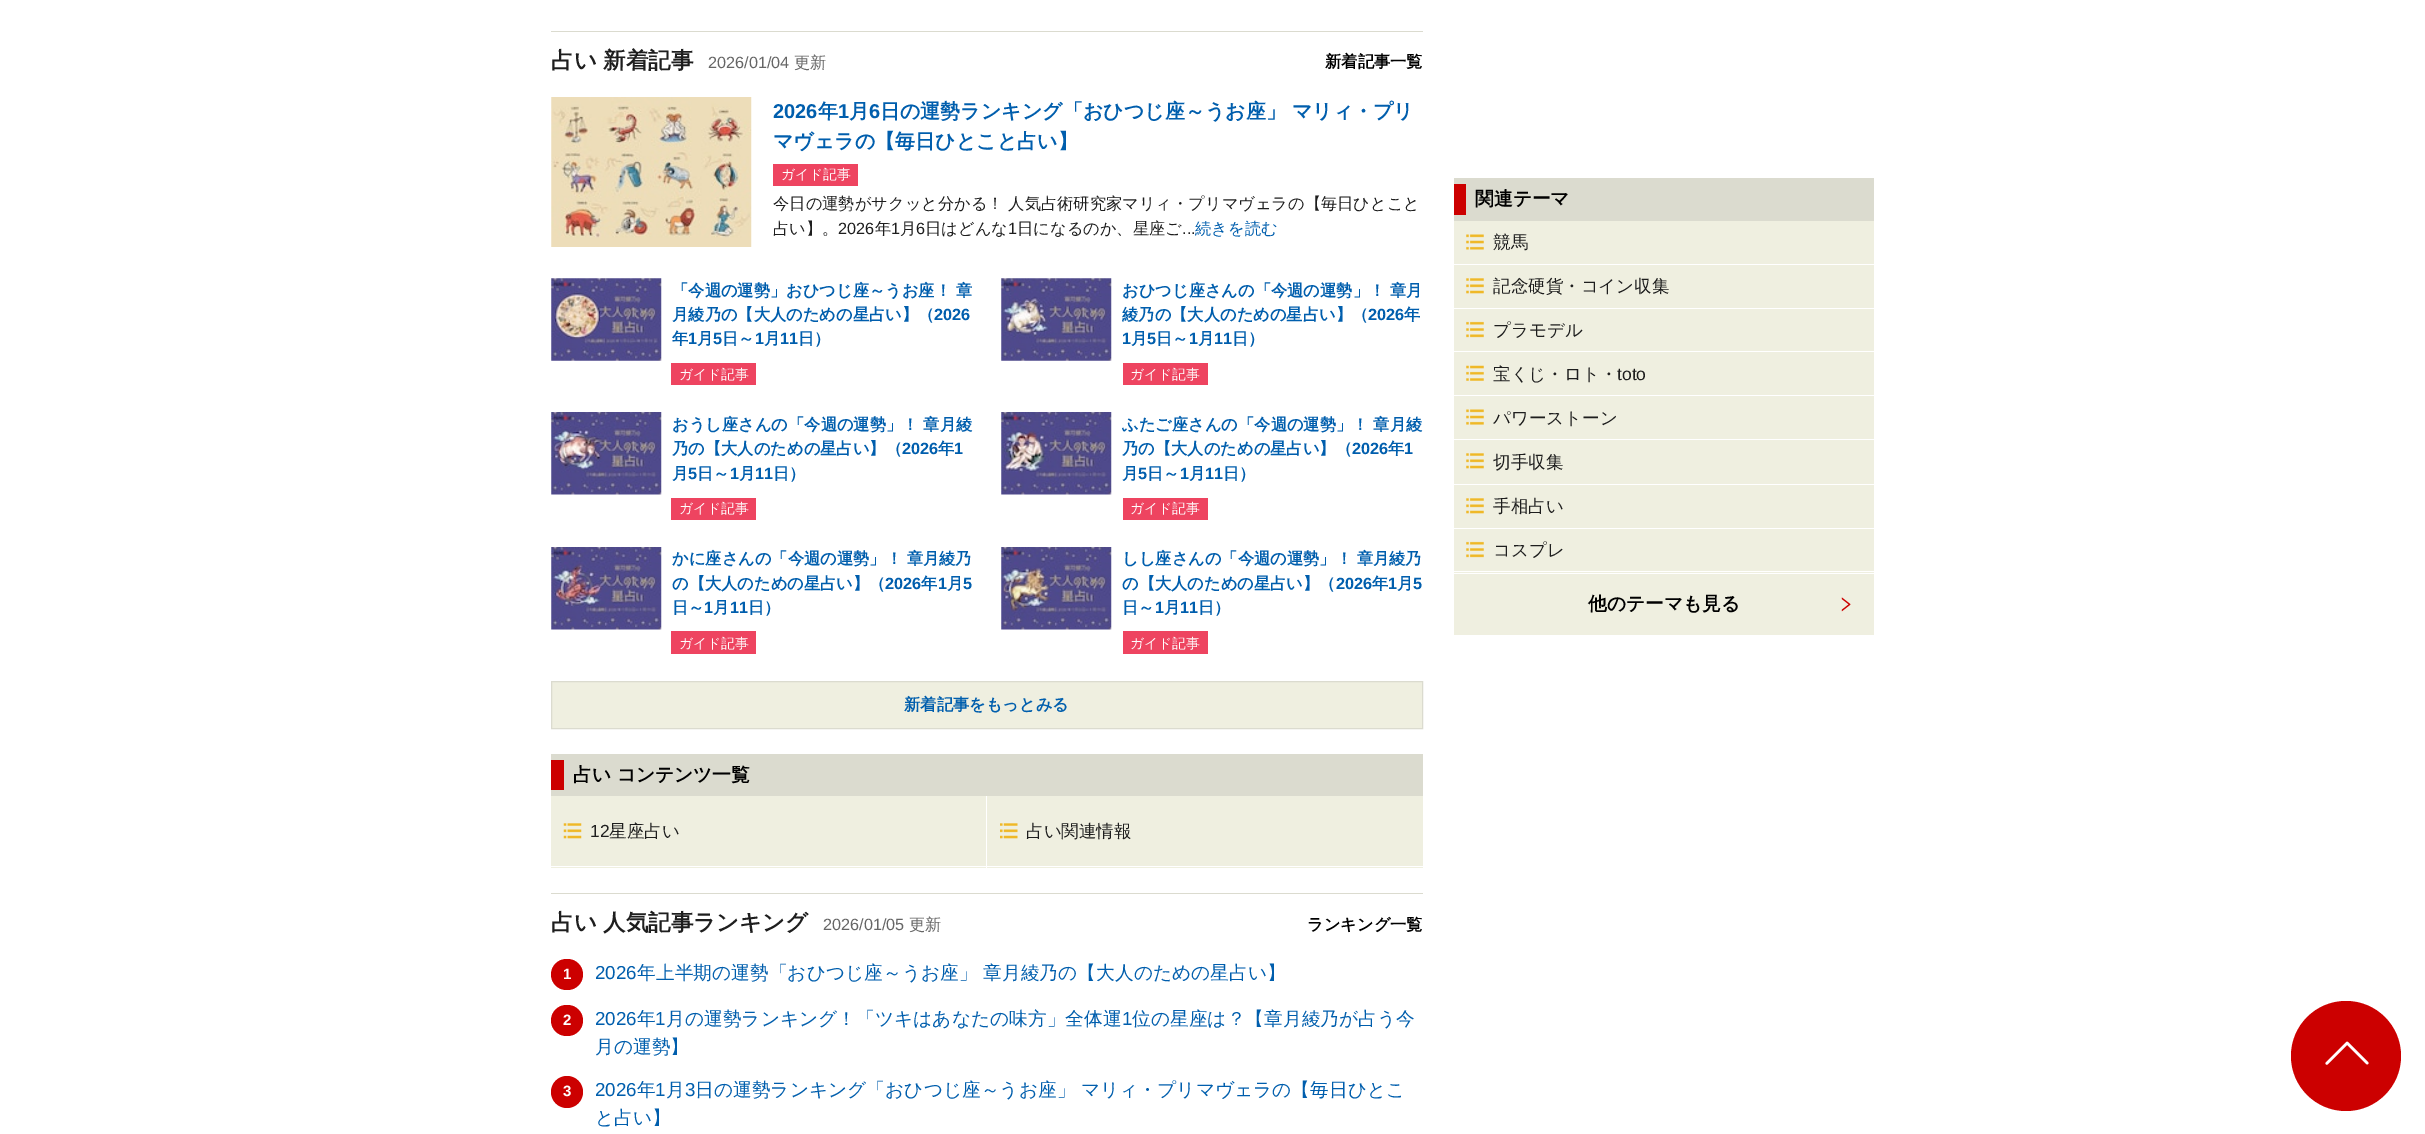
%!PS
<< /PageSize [2425 1134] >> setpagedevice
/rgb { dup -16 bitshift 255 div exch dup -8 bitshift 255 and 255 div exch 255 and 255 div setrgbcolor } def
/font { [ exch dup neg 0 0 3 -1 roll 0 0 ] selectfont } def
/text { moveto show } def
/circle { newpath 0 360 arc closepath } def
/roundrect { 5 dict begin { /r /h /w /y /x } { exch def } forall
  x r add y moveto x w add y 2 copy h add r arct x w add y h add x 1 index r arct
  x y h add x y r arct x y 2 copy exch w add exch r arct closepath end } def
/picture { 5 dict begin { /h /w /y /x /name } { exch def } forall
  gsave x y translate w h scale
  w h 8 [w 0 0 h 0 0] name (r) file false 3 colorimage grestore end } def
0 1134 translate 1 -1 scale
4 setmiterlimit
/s1 { /WenQuanYiZenHei-Bold 22.5 font 16#1E1E1E rgb } def
/s2 { /LiberationSans-Regular 16.25 font 16#666666 rgb } def
/s3 { /WenQuanYiZenHei-Medium 16.25 font 16#666666 rgb } def
/s4 { /WenQuanYiZenHei-Bold 16.25 font 16#000000 rgb } def
/s5 { /LiberationSans-Bold 20 font 16#005EAD rgb } def
/s6 { /WenQuanYiZenHei-Bold 20 font 16#005EAD rgb } def
/s7 { /WenQuanYiZenHei-Medium 13.75 font 16#FFFFFF rgb } def
/s8 { /WenQuanYiZenHei-Medium 16.25 font 16#1E1E1E rgb } def
/s9 { /LiberationSans-Regular 16.25 font 16#1E1E1E rgb } def
/s10 { /WenQuanYiZenHei-Medium 16.25 font 16#005EAD rgb } def
/s11 { /WenQuanYiZenHei-Bold 16.25 font 16#005EAD rgb } def
/s12 { /LiberationSans-Bold 16.25 font 16#005EAD rgb } def
/s13 { /WenQuanYiZenHei-Bold 18.75 font 16#000000 rgb } def
/s14 { /LiberationSans-Regular 17.5 font 16#1E1E1E rgb } def
/s15 { /WenQuanYiZenHei-Medium 17.5 font 16#1E1E1E rgb } def
/s16 { /LiberationSans-Bold 15 font 16#FFFFFF rgb } def
/s17 { /LiberationSans-Regular 18.75 font 16#005EAD rgb } def
/s18 { /WenQuanYiZenHei-Medium 18.75 font 16#005EAD rgb } def
16#FFFFFF rgb
0 0 2425 1134 rectfill
16#DBDBCF rgb
551 31 872 1 rectfill
s1
(占い 新着記事) 551 68 text
s2
(2026/01/04) 708 68 text
s3
(更新) 794 68 text
s4
(新着記事一覧) 1325 67 text
(pic1.raw) 551 97 201 150 picture
s5
(2026) 773 118 text
s6
(年) 818 118 text
s5
(1) 838 118 text
s6
(月) 849 118 text
s5
(6) 869 118 text
s6
(日の運勢ランキング「おひつじ座～うお座」 マリィ・プリ) 880 118 text
(マヴェラの【毎日ひとこと占い】) 773 148 text
16#EE4460 rgb
773 164 85 22 rectfill
s7
(ガイド記事) 781 179 text
s8
(今日の運勢がサクッと分かる！ 人気占術研究家マリィ・プリマヴェラの【毎日ひとこと) 773 209 text
(占い】。) 773 234 text
s9
(2026) 838 234 text
s8
(年) 875 234 text
s9
(1) 891 234 text
s8
(月) 900 234 text
s9
(6) 916 234 text
s8
(日はどんな) 925 234 text
s9
(1) 1008 234 text
s8
(日になるのか、星座ご) 1017 234 text
s9
(...) 1182 234 text
s10
(続きを読む) 1195 234 text
(pic2.raw) 551 278 111 83 picture
s11
(「今週の運勢」おひつじ座～うお座！ 章) 672 296 text
(月綾乃の【大人のための星占い】（) 672 320 text
s12
(2026) 934 320 text
s11
(年) 672 344 text
s12
(1) 688 344 text
s11
(月) 697 344 text
s12
(5) 713 344 text
s11
(日～) 722 344 text
s12
(1) 755 344 text
s11
(月) 764 344 text
s12
(11) 780 344 text
s11
(日）) 798 344 text
16#EE4460 rgb
671 363 85 22 rectfill
s7
(ガイド記事) 679 379 text
(pic3.raw) 1001 278 111 83 picture
s11
(おひつじ座さんの「今週の運勢」！ 章月) 1122 296 text
(綾乃の【大人のための星占い】（) 1122 320 text
s12
(2026) 1368 320 text
s11
(年) 1404 320 text
s12
(1) 1122 344 text
s11
(月) 1131 344 text
s12
(5) 1147 344 text
s11
(日～) 1156 344 text
s12
(1) 1189 344 text
s11
(月) 1198 344 text
s12
(11) 1214 344 text
s11
(日）) 1232 344 text
16#EE4460 rgb
1123 363 85 22 rectfill
s7
(ガイド記事) 1130 379 text
(pic4.raw) 551 412 111 83 picture
s11
(おうし座さんの「今週の運勢」！ 章月綾) 672 430 text
(乃の【大人のための星占い】（) 672 454 text
s12
(2026) 902 454 text
s11
(年) 938 454 text
s12
(1) 954 454 text
s11
(月) 672 479 text
s12
(5) 688 479 text
s11
(日～) 697 479 text
s12
(1) 730 479 text
s11
(月) 739 479 text
s12
(11) 755 479 text
s11
(日）) 773 479 text
16#EE4460 rgb
671 498 85 22 rectfill
s7
(ガイド記事) 679 513 text
(pic5.raw) 1001 412 111 83 picture
s11
(ふたご座さんの「今週の運勢」！ 章月綾) 1122 430 text
(乃の【大人のための星占い】（) 1122 454 text
s12
(2026) 1352 454 text
s11
(年) 1388 454 text
s12
(1) 1404 454 text
s11
(月) 1122 479 text
s12
(5) 1138 479 text
s11
(日～) 1147 479 text
s12
(1) 1180 479 text
s11
(月) 1189 479 text
s12
(11) 1205 479 text
s11
(日）) 1223 479 text
16#EE4460 rgb
1123 498 85 22 rectfill
s7
(ガイド記事) 1130 513 text
(pic6.raw) 551 547 111 83 picture
s11
(かに座さんの「今週の運勢」！ 章月綾乃) 672 564 text
(の【大人のための星占い】（) 672 589 text
s12
(2026) 885 589 text
s11
(年) 921 589 text
s12
(1) 938 589 text
s11
(月) 947 589 text
s12
(5) 963 589 text
s11
(日～) 672 613 text
s12
(1) 704 613 text
s11
(月) 713 613 text
s12
(11) 730 613 text
s11
(日）) 748 613 text
16#EE4460 rgb
671 631 85 23 rectfill
s7
(ガイド記事) 679 648 text
(pic7.raw) 1001 547 111 83 picture
s11
(しし座さんの「今週の運勢」！ 章月綾乃) 1122 564 text
(の【大人のための星占い】（) 1122 589 text
s12
(2026) 1336 589 text
s11
(年) 1372 589 text
s12
(1) 1388 589 text
s11
(月) 1397 589 text
s12
(5) 1413 589 text
s11
(日～) 1122 613 text
s12
(1) 1155 613 text
s11
(月) 1164 613 text
s12
(11) 1180 613 text
s11
(日）) 1198 613 text
16#EE4460 rgb
1123 631 85 23 rectfill
s7
(ガイド記事) 1130 648 text
16#EFEFE0 rgb
551.5 681.5 moveto 1422.5 681.5 lineto 1422.5 728.5 lineto 551.5 728.5 lineto closepath gsave fill grestore
16#DBDBCF rgb
stroke
s11
(新着記事をもっとみる) 904 710 text
16#DBDBCF rgb
551 754 872 42 rectfill
16#CC0000 rgb
551 760 13 30 rectfill
s13
(占い コンテンツ一覧) 573 781 text
16#EFEFE0 rgb
551 796 872 72 rectfill
16#FFFFFF rgb
986 796 1 72 rectfill
551 866 872 1 rectfill
(pic8.raw) 563 823 19 16 picture
s14
(12) 590 837 text
s15
(星座占い) 609 837 text
(pic9.raw) 1000 823 18 16 picture
(占い関連情報) 1026 837 text
16#DBDBCF rgb
551 893 872 1 rectfill
s1
(占い) 551 930 text
(人気記事ランキング) 603 930 text
s2
(2026/01/05) 823 930 text
s3
(更新) 909 930 text
s4
(ランキング一覧) 1307 930 text
16#CC0000 rgb
551 959 32 31 15.5 roundrect fill
s16
(1) 563 979 text
s17
(2026) 595 979 text
s18
(年上半期の運勢「おひつじ座～うお座」 章月綾乃の【大人のための星占い】) 637 979 text
16#CC0000 rgb
551 1005 32 31 15.5 roundrect fill
s16
(2) 563 1025 text
s17
(2026) 595 1025 text
s18
(年) 637 1025 text
s17
(1) 655 1025 text
s18
(月の運勢ランキング！「ツキはあなたの味方」全体運) 666 1025 text
s17
(1) 1122 1025 text
s18
(位の星座は？【章月綾乃が占う今) 1132 1025 text
(月の運勢】) 595 1053 text
16#CC0000 rgb
567 1092 16 circle fill
s16
(3) 563 1096 text
s17
(2026) 595 1096 text
s18
(年) 637 1096 text
s17
(1) 655 1096 text
s18
(月) 666 1096 text
s17
(3) 685 1096 text
s18
(日の運勢ランキング「おひつじ座～うお座」 マリィ・プリマヴェラの【毎日ひとこ) 695 1096 text
(と占い】) 595 1124 text
16#DBDBCF rgb
1454 178 420 43 rectfill
16#CC0000 rgb
1454 184 12 31 rectfill
s13
(関連テーマ) 1475 205 text
16#EFEFE0 rgb
1454 221 420 352 rectfill
16#FFFFFF rgb
1454 264 420 1 rectfill
(pic10.raw) 1466 234 18 16 picture
s15
(競馬) 1493 248 text
16#FFFFFF rgb
1454 308 420 1 rectfill
(pic11.raw) 1466 278 18 16 picture
s15
(記念硬貨・コイン収集) 1493 292 text
16#FFFFFF rgb
1454 351 420 1 rectfill
(pic12.raw) 1466 321 18 17 picture
s15
(プラモデル) 1493 336 text
16#FFFFFF rgb
1454 395 420 1 rectfill
(pic13.raw) 1466 365 18 16 picture
s15
(宝くじ・ロト・) 1493 380 text
s14
(toto) 1617 380 text
16#FFFFFF rgb
1454 439 420 1 rectfill
(pic14.raw) 1466 409 18 16 picture
s15
(パワーストーン) 1493 424 text
16#FFFFFF rgb
1454 484 420 1 rectfill
(pic11.raw) 1466 453 18 16 picture
s15
(切手収集) 1493 468 text
16#FFFFFF rgb
1454 528 420 1 rectfill
(pic11.raw) 1466 498 18 16 picture
s15
(手相占い) 1493 512 text
16#FFFFFF rgb
1454 571 420 1 rectfill
(pic12.raw) 1466 541 18 17 picture
s15
(コスプレ) 1493 556 text
16#EFEFE0 rgb
1454 574 420 61 rectfill
s13
(他のテーマも見る) 1588 610 text
(pic15.raw) 1841 597 10 15 picture
16#CC0000 rgb
2346 1056 55 circle fill
(pic16.raw) 2325 1041 44 24 picture
showpage
